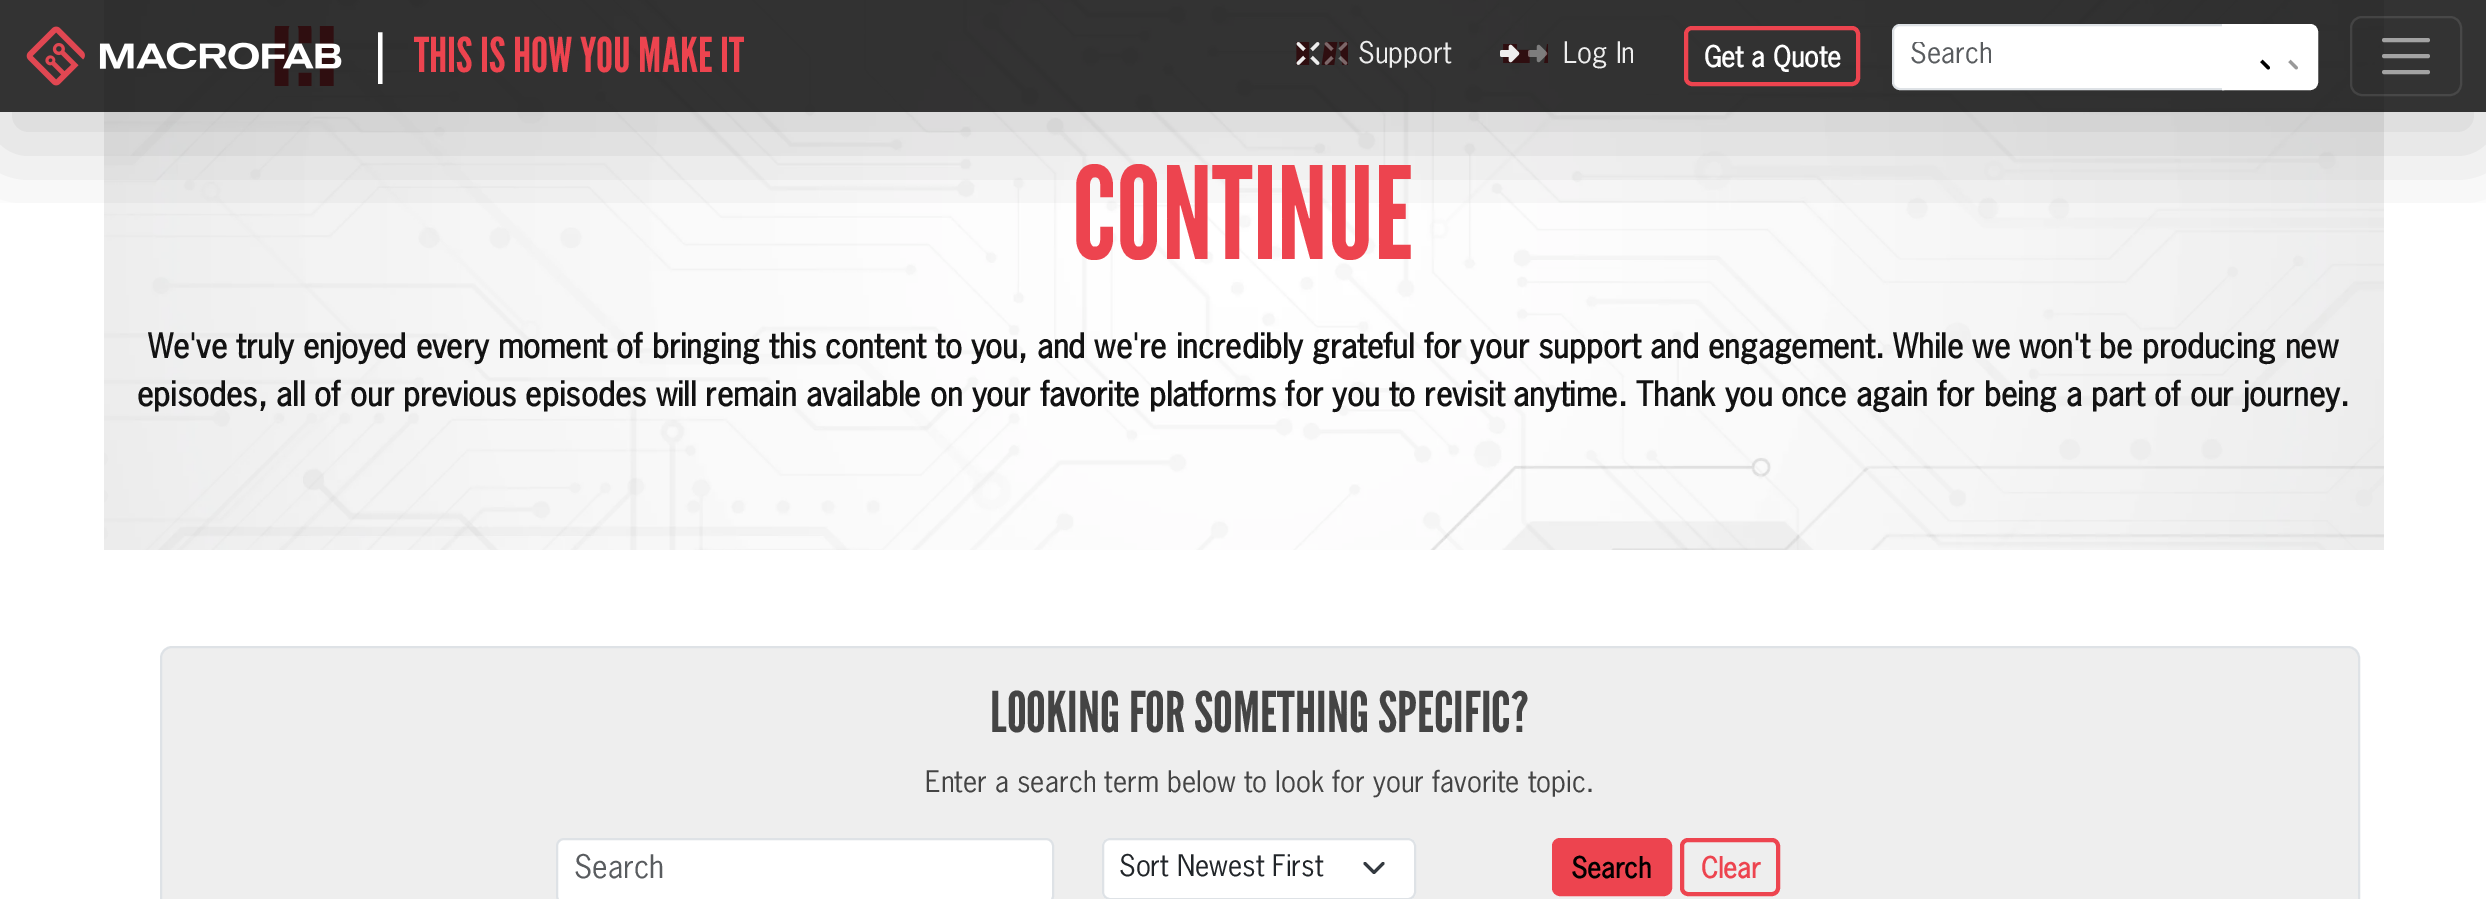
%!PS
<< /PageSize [2486 899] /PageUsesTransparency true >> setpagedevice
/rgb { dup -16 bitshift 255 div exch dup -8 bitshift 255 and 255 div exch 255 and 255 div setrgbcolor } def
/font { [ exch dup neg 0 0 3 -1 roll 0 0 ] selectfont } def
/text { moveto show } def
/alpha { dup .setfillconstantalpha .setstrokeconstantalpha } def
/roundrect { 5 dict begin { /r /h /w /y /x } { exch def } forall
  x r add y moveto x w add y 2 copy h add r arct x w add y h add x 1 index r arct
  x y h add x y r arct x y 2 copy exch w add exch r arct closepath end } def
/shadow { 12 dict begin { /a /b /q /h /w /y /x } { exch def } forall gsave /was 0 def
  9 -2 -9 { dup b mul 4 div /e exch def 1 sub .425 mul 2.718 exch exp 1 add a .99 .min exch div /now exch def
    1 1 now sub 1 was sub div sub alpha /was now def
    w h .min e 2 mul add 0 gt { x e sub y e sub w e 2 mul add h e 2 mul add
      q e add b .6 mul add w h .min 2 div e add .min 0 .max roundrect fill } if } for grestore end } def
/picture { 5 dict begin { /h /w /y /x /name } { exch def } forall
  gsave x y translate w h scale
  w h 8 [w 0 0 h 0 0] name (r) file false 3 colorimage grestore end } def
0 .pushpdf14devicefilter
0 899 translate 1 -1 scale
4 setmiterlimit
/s1 { /LeagueGothic-Regular 48 font 16#FFFFFF rgb } def
/s2 { /LeagueGothic-Regular 48 font 16#ED444F rgb } def
/s3 { /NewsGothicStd-Regular 28 font 16#EEEEEE rgb } def
/s4 { /NewsGothicStd-Bold 27.25 font 16#FFFFFF rgb } def
/s5 { /NewsGothicStd-Regular 28 font 16#595C5F rgb } def
/s6 { /LeagueGothic-Regular 128 font 16#ED444F rgb } def
/s7 { /NewsGothicStd-Bold 32 font 16#121212 rgb } def
/s8 { /LeagueGothic-Regular 56 font 16#444444 rgb } def
/s9 { /NewsGothicStd-Regular 28 font 16#444444 rgb } def
/s10 { /NewsGothicStd-Regular 30.5 font 16#595C5F rgb } def
/s11 { /NewsGothicStd-Regular 28 font 16#212529 rgb } def
/s12 { /NewsGothicStd-Bold 27.25 font 16#000000 rgb } def
/s13 { /NewsGothicStd-Bold 27.25 font 16#ED444F rgb } def
16#FFFFFF rgb
0 0 2486 899 rectfill
(pic8.raw) 104 0 2280 550 picture
gsave
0 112 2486 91 rectclip
16#000000 rgb
0 32 2486 112 0 48 0.18 shadow
grestore
0.8 alpha
16#000000 rgb
0 0 2486 112 rectfill
1 alpha
(pic1.raw) 26 26 316 60 picture
s1
(|) 376 72 text
s2
(THIS IS HOW YOU MAKE IT) 414 72 text
(pic2.raw) 1296 42 24 23 picture
(pic3.raw) 1296 42 52 23 picture
s3
(Support) 1358 63 text
(pic4.raw) 1500 44 20 19 picture
(pic5.raw) 1500 44 48 19 picture
(Log In) 1563 63 text
16#ED444F rgb
4 setlinewidth
1686 28 172 56 6 roundrect stroke
s4
(Get a Quote) 1704 67 text
1900 25 moveto 2223 25 lineto 2223 89 lineto 1900 89 lineto 1896 89 1893 86 1893 82 curveto 1893 32 lineto 1893 28 1896 25 1900 25 curveto closepath gsave fill grestore
16#DEE2E6 rgb
2 setlinewidth
stroke
gsave
1910 42 296 28 rectclip
s5
(Search) 1910 63 text
grestore
16#FFFFFF rgb
2224 26 moveto 2310 26 lineto 2313.5 26 2316 28.5 2316 32 curveto 2316 82 lineto 2316 85.5 2313.5 88 2310 88 curveto 2224 88 lineto closepath gsave fill grestore
4 setlinewidth
stroke
(pic6.raw) 2260 59 10 11 picture
(pic7.raw) 2260 59 38 11 picture
0.1 alpha
2 setlinewidth
2351 17 110 78 11 roundrect stroke
0.55 alpha
4 setlinewidth
1 setlinecap
2384 40 moveto 2428 40 lineto 2384 56 moveto 2428 56 lineto 2384 72 moveto 2428 72 lineto stroke
1 alpha
s6
(CONTINUE) 1072 259 text
s7
(We've truly enjoyed every moment of bringing this content to you, and we're incredibly grateful for your support and engagement. While we won't be producing new) 148 358 text
(episodes, all of our previous episodes will remain available on your favorite platforms for you to revisit anytime. Thank you once again for being a part of our journey.) 137 406 text
16#EEEEEE rgb
161 647 2198 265 11 roundrect gsave fill grestore
16#DEE2E6 rgb
2 setlinewidth
0 setlinecap
stroke
s8
(LOOKING FOR SOMETHING SPECIFIC?) 990 732 text
s9
(Enter a search term below to look for your favorite topic.) 925 792 text
16#FFFFFF rgb
557 839 496 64 7 roundrect gsave fill grestore
16#DEE2E6 rgb
stroke
s10
(Search) 574 878 text
16#FFFFFF rgb
1102 838 314 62 8 roundrect fill
16#343A40 rgb
3 setlinewidth
1 setlinecap
1 setlinejoin
1365 863.5 moveto 1374 872.5 lineto 1383 863.5 lineto stroke
16#DEE2E6 rgb
2 setlinewidth
0 setlinecap
0 setlinejoin
1103 839 312 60 7 roundrect stroke
s11
(Sort Newest First) 1119 876 text
16#ED444F rgb
1554 840 116 54 6 roundrect gsave fill grestore
4 setlinewidth
stroke
s12
(Search) 1571 878 text
16#ED444F rgb
1682 840 96 54 6 roundrect stroke
(Clear) 1701 878 text
.poppdf14devicefilter showpage
